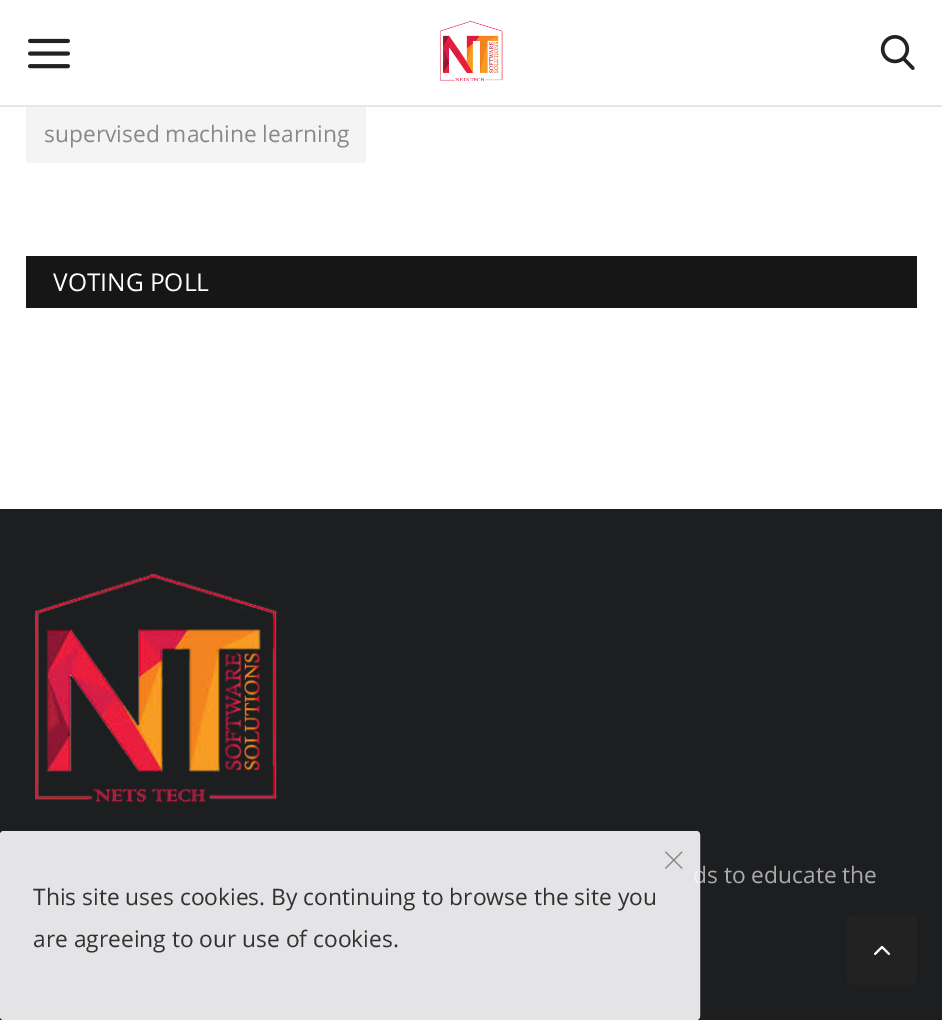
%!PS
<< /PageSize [942 1020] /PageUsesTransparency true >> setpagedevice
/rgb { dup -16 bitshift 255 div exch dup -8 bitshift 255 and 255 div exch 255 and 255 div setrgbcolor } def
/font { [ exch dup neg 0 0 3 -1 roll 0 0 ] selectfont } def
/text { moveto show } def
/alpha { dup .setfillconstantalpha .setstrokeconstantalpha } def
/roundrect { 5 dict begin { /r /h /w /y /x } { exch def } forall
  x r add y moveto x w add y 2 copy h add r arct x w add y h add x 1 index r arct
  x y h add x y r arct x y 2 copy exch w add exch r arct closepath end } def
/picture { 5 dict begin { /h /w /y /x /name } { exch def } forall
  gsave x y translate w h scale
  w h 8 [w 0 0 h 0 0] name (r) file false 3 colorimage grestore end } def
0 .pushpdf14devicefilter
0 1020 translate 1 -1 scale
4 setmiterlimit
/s1 { /OpenSans-Regular 22.75 font 16#888888 rgb } def
/s2 { /OpenSans-Regular 24.5 font 16#FFFFFF rgb } def
/s3 { /OpenSans-Regular 22.75 font 16#AAAAAA rgb } def
/s4 { /OpenSans-Regular 22.75 font 16#313131 rgb } def
16#FFFFFF rgb
0 0 942 1020 rectfill
16#F4F4F4 rgb
26 103 340 60 4 roundrect fill
16#FFFFFF rgb
27 103 338 2 rectfill
16#E6E6E6 rgb
0 105 942 2 rectfill
(pic1.raw) 28 38 42 31 picture
(pic2.raw) 440 20 63 61 picture
(pic3.raw) 880 35 35 35 picture
s1
(supervised machine learning) 44 142 text
16#161616 rgb
26 256 891 52 rectfill
s2
(VOTING POLL) 53 291 text
16#1D1E20 rgb
0 509 942 511 rectfill
(pic4.raw) 35 573 242 230 picture
s3
(ds to educate the) 693 883 text
0.9 alpha
16#FAFAFC rgb
0 831 700 189 4 roundrect fill
16#E5E5E8 rgb
2 setlinewidth
1 832 698 187 3 roundrect stroke
1 alpha
(pic5.raw) 665 851 18 18 picture
s4
(This site uses cookies. By continuing to browse the site you) 33 905 text
(are agreeing to our use of cookies.) 33 947 text
16#222222 rgb
847 915 70 70 5 roundrect fill
(pic6.raw) 874 945 16 10 picture
.poppdf14devicefilter showpage
